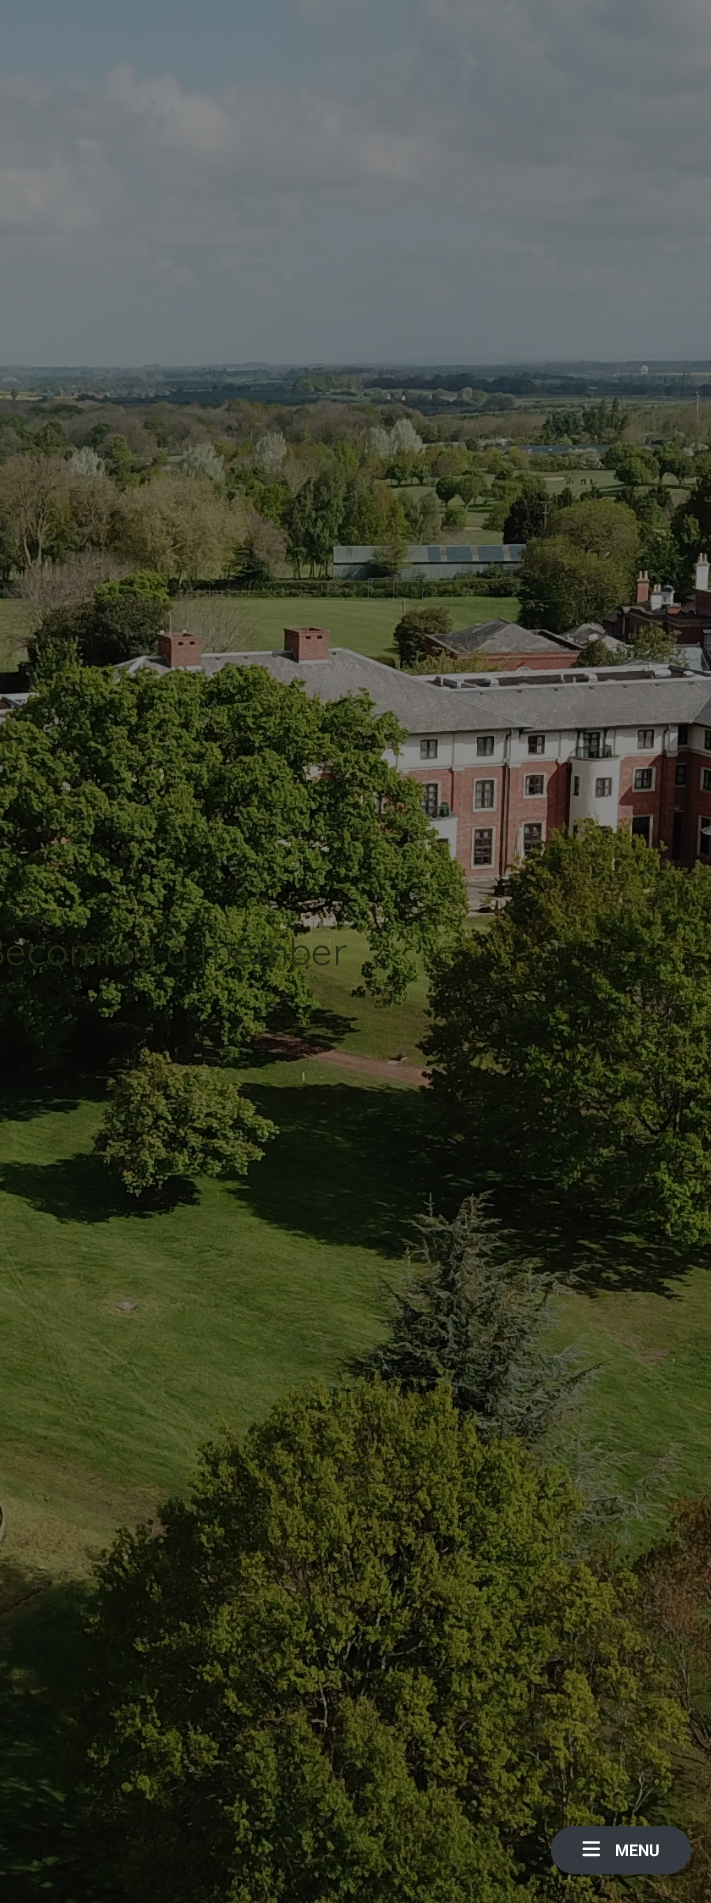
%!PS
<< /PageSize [711 1903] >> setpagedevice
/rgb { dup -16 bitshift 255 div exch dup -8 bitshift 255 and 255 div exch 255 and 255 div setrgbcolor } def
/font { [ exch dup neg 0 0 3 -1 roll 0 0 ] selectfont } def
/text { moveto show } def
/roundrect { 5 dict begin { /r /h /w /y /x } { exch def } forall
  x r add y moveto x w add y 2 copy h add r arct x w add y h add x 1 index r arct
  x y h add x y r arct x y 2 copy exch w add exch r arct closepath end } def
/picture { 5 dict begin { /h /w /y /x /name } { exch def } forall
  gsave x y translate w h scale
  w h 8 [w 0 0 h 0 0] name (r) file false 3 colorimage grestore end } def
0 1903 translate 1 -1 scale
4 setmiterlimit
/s1 { /Quicksand-Light 37.5 font 16#262C13 rgb } def
/s2 { /Roboto-Bold 16 font 16#FFFFFF rgb } def
16#000000 rgb
0 0 711 1903 rectfill
(pic1.raw) 0 0 711 1903 picture
s1
(Becoming a member) -19 965 text
16#343A40 rgb
551.5 1826.5 139 47 23.5 roundrect gsave fill grestore
stroke
(pic2.raw) 582 1841 18 16 picture
s2
(MENU) 615 1856 text
showpage
